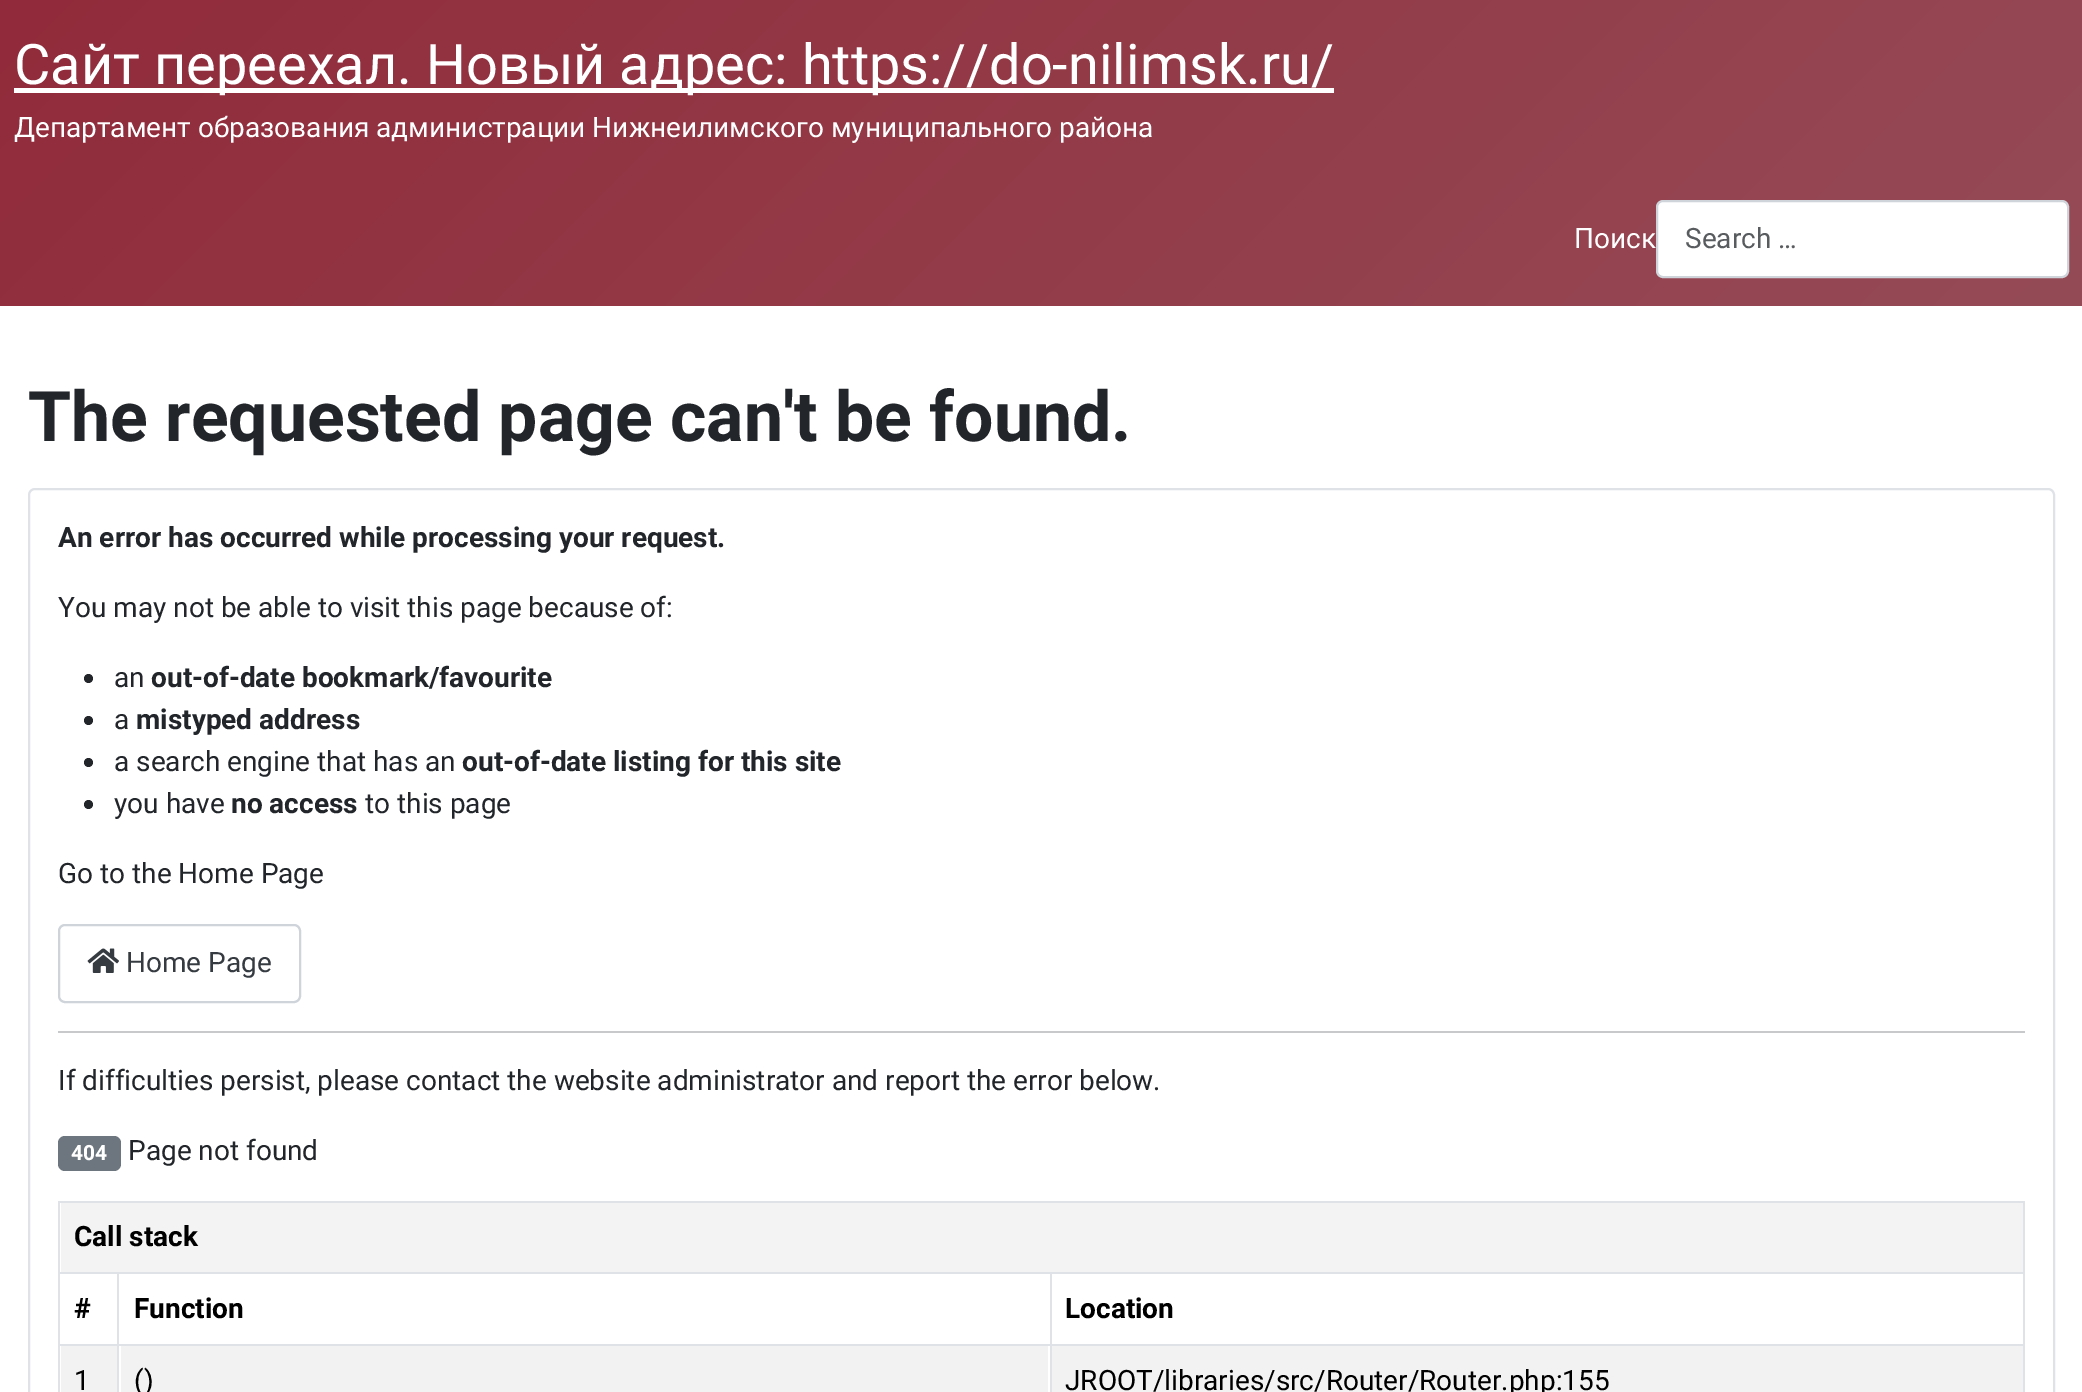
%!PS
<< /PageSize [2082 1392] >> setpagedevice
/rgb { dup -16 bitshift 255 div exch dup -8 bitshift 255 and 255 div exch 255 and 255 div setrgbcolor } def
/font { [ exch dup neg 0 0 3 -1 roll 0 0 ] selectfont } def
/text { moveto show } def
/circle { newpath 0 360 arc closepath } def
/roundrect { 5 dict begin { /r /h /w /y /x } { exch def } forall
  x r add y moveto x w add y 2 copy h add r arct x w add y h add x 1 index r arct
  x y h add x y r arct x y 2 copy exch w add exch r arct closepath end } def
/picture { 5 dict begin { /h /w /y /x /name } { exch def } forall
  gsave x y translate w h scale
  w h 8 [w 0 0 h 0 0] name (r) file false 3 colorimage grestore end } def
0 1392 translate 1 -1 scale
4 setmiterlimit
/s1 { /Roboto-Regular 56 font 16#FFFFFF rgb } def
/s2 { /Roboto-Regular 28 font 16#FFFFFF rgb } def
/s3 { /Roboto-Regular 28 font 16#595C5F rgb } def
/s4 { /Roboto-Bold 69.75 font 16#22262A rgb } def
/s5 { /Roboto-Bold 28 font 16#22262A rgb } def
/s6 { /Roboto-Regular 28 font 16#22262A rgb } def
/s7 { /Roboto-Regular 28 font 16#353B41 rgb } def
/s8 { /Roboto-Bold 21 font 16#FFFFFF rgb } def
/s9 { /Roboto-Bold 28 font 16#000000 rgb } def
/s10 { /Roboto-Regular 28 font 16#000000 rgb } def
16#FFFFFF rgb
0 0 2082 1392 rectfill
gsave 0 0 moveto 2082 0 lineto 2082 306 lineto 0 306 lineto closepath clip newpath
<< /ShadingType 2 /ColorSpace /DeviceRGB /Coords [444 -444 1638 750] /Extend [true true] /Function << /FunctionType 2 /Domain [0 1] /C0 [0.569 0.169 0.231] /C1 [0.584 0.294 0.337] /N 1 >> >> shfill grestore
14 88 1320 5 rectfill
s1
(Сайт переехал. Новый адрес: https://do-nilimsk.ru/) 14 84 text
s2
(Департамент образования администрации Нижнеилимского муниципального района) 14 137 text
(Поиск) 1574 248 text
1657 201 411 76 6 roundrect gsave fill grestore
16#CED4DA rgb
2 setlinewidth
stroke
s3
(Search …) 1685 248 text
s4
(The requested page can't be found.) 28 441 text
16#DFE3E7 rgb
29 489 2025 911 6 roundrect stroke
s5
(An error has occurred while processing your request.) 58 547 text
s6
(You may not be able to visit this page because of:) 58 617 text
88.5 678.5 4.5 circle fill
(an) 114 687 text
s5
(out-of-date bookmark/favourite) 151 687 text
88.5 720.5 4.5 circle fill
s6
(a) 114 729 text
s5
(mistyped address) 136 729 text
88.5 762.5 4.5 circle fill
s6
(a search engine that has an) 114 771 text
s5
(out-of-date listing for this site) 462 771 text
88.5 804.5 4.5 circle fill
s6
(you have) 114 813 text
s5
(no access) 231 813 text
s6
(to this page) 365 813 text
(Go to the Home Page) 58 883 text
16#CED4DA rgb
59 925 241 77 6 roundrect stroke
(pic1.raw) 87 948 32 25 picture
s7
(Home Page) 126 972 text
16#C8C9CA rgb
58 1031 1967 2 rectfill
s6
(If difficulties persist, please contact the website administrator and report the error below.) 58 1090 text
16#6D757E rgb
58 1136 63 35 7 roundrect fill
s8
(404) 71 1160 text
s6
(Page not found) 128 1160 text
16#DFE3E7 rgb
58 1201 1967 2 rectfill
16#F3F3F3 rgb
61 1203 1962 69 rectfill
s9
(Call stack) 74 1246 text
16#DFE3E7 rgb
58 1272 1967 2 rectfill
s9
(#) 74 1318 text
(Function) 134 1318 text
(Location) 1065 1318 text
16#DFE3E7 rgb
58 1344 1967 2 rectfill
16#F2F2F2 rgb
61 1346 56 46 rectfill
16#DFE3E7 rgb
58 1201 2 191 rectfill
s10
(1) 74 1390 text
16#F2F2F2 rgb
121 1346 927 46 rectfill
16#DFE3E7 rgb
117 1272 2 120 rectfill
s10
(\(\)) 134 1390 text
16#F2F2F2 rgb
1052 1346 971 46 rectfill
16#DFE3E7 rgb
2023 1201 2 191 rectfill
1050 1272 2 120 rectfill
s10
(JROOT/libraries/src/Router/Router.php:155) 1065 1390 text
showpage
